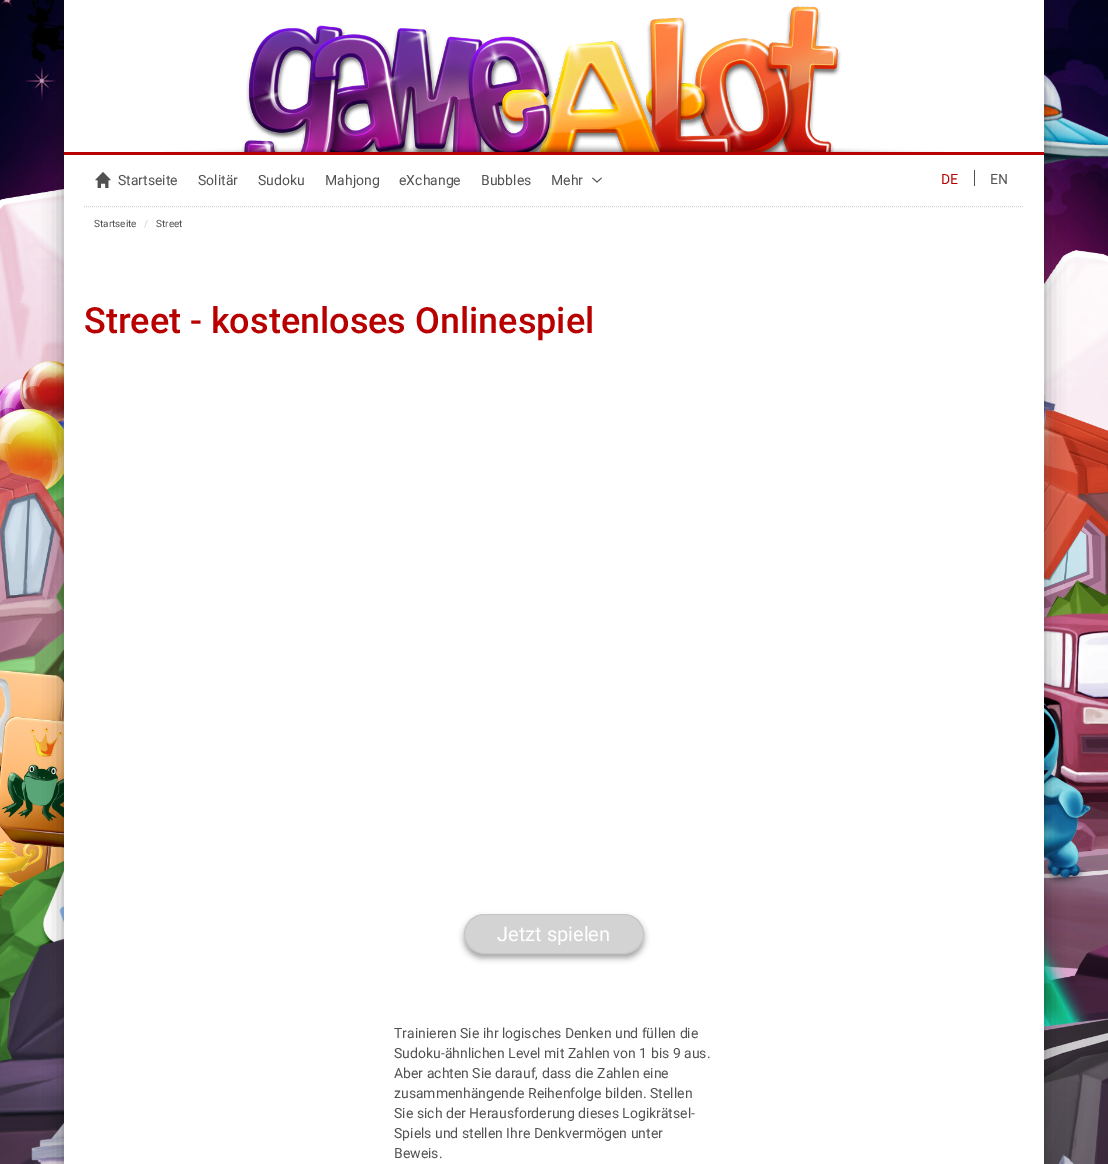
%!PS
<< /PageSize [1108 1164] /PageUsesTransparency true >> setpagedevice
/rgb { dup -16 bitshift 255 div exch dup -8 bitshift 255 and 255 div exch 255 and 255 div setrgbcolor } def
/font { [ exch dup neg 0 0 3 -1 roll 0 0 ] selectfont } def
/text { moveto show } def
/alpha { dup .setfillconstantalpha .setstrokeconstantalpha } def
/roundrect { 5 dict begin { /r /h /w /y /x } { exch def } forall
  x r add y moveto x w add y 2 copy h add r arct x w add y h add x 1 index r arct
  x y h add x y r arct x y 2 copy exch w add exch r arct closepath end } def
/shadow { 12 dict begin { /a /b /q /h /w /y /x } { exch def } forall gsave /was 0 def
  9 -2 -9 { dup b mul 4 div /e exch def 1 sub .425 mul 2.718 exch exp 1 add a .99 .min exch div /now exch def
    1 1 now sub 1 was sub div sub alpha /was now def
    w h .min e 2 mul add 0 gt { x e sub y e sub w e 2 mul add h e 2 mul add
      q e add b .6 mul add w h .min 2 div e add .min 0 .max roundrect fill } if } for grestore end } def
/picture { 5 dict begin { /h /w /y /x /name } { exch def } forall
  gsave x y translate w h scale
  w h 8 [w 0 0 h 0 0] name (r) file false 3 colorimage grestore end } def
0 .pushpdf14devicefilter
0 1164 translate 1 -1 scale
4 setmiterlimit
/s1 { /Roboto-Regular 14 font 16#515151 rgb } def
/s2 { /Roboto-Regular 14 font 16#B80000 rgb } def
/s3 { /Roboto-Regular 10 font 16#515151 rgb } def
/s4 { /Roboto-Regular 10 font 16#CCCCCC rgb } def
/s5 { /Roboto-Medium 36 font 16#B80000 rgb } def
/s6 { /Roboto-Regular 20 font 16#FFFFFF rgb } def
16#FFFFFF rgb
0 0 1108 1164 rectfill
(pic1.raw) 0 0 1108 1164 picture
16#000000 rgb
64 5 980 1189 0 10 0.2 shadow
64 5 980 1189 0 10 0.2 shadow
16#FFFFFF rgb
64 0 980 1164 rectfill
16#B80000 rgb
64 152 980 3 rectfill
(pic2.raw) 164 6 780 146 picture
(pic3.raw) 95 172 16 16 picture
s1
(Startseite) 118 185 text
(Solitär) 198 185 text
(Sudoku) 258 185 text
(Mahjong) 325 185 text
(eXchange) 399 185 text
(Bubbles) 481 185 text
(Mehr) 551 185 text
0.8 setlinewidth
592.5 178 moveto 597 182 lineto 601.5 178 lineto stroke
s2
(DE) 941 184 text
16#515151 rgb
974 170 1 16 rectfill
(EN) 990 184 text
16#D3D3D3 rgb
1 setlinewidth
[1 1] 0 setdash
84 206.5 moveto 1024 206.5 lineto stroke
s3
(Startseite) 94 227 text
s4
(/) 144 227 text
s3
(Street) 156 227 text
s5
(Street - kostenloses Onlinespiel) 84 333 text
16#000000 rgb
464 918 180 40 20 3 0.35 shadow
16#D3D3D3 rgb
464.5 914.5 179 39 19.5 roundrect gsave fill grestore
16#C6C6C6 rgb
[] 0 setdash
stroke
s6
(Jetzt spielen) 497 941 text
s1
(Trainieren Sie ihr logisches Denken und füllen die) 394 1038 text
(Sudoku-ähnlichen Level mit Zahlen von 1 bis 9 aus.) 394 1058 text
(Aber achten Sie darauf, dass die Zahlen eine) 394 1078 text
(zusammenhängende Reihenfolge bilden. Stellen) 394 1098 text
(Sie sich der Herausforderung dieses Logikrätsel-) 394 1118 text
(Spiels und stellen Ihre Denkvermögen unter) 394 1138 text
(Beweis.) 394 1158 text
.poppdf14devicefilter showpage
